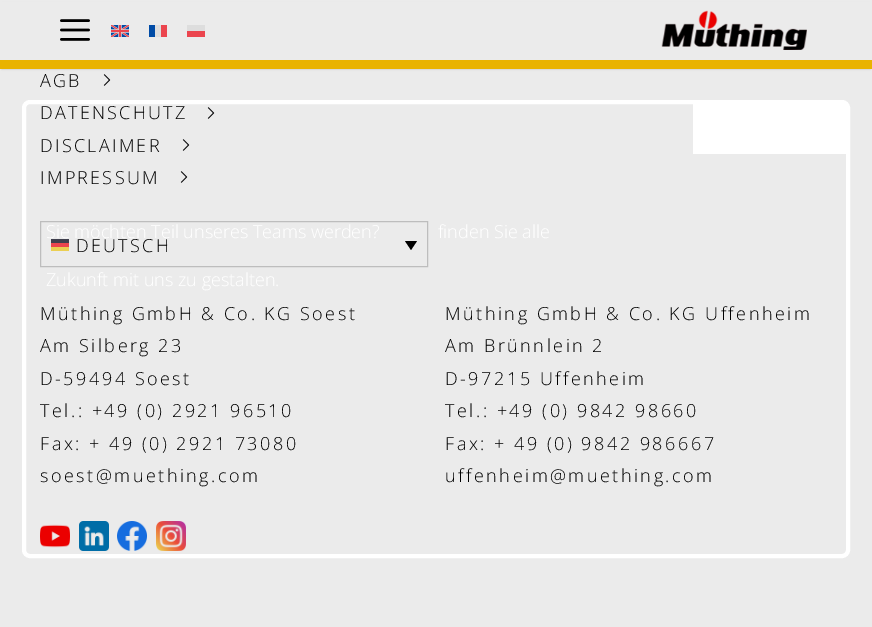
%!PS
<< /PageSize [872 627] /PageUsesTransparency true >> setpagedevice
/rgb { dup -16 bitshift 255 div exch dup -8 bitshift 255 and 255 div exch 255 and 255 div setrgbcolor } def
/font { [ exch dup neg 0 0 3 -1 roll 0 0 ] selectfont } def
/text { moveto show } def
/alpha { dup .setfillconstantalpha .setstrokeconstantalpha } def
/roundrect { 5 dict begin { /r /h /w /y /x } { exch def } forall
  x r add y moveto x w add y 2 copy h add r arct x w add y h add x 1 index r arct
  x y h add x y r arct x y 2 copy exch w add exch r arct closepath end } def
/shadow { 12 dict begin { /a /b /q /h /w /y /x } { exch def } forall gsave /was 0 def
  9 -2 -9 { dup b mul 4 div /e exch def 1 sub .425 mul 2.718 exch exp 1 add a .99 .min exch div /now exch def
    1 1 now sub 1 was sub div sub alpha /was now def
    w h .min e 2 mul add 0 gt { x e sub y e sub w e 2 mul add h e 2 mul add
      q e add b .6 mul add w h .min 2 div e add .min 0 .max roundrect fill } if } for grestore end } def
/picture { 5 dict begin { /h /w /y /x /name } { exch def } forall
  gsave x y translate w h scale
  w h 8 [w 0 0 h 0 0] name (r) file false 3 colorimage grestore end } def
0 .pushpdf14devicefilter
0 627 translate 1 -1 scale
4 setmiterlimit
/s1 { /OpenSans-Light 18 font 16#FFFFFF rgb } def
16#EBEBEB rgb
0 0 872 627 rectfill
16#000000 rgb
2 4 868 65 0 1 0.2 shadow
16#EBEBEB rgb
0 2 872 58 rectfill
16#E9B300 rgb
0 60 872 9 rectfill
(pic1.raw) 60 19 30 22 picture
(pic2.raw) 111 25 18 12 picture
16#004BA6 rgb
149 25 6 12 rectfill
16#DDDDDD rgb
155 25 6 12 rectfill
16#EB454E rgb
161 25 6 12 rectfill
16#DDDDDD rgb
187 25 18 6 rectfill
16#EB454E rgb
187 31 18 6 rectfill
(pic3.raw) 661 10 146 40 picture
(pic4.raw) 103 74 8 12 picture
/OpenSans-Light 18 font
16#000000 rgb
40 87 moveto 2.25 0 (AGB) ashow
(pic4.raw) 207 107 8 12 picture
40 119 moveto 2.25 0 (DATENSCHUTZ) ashow
(pic4.raw) 182 139 8 12 picture
40 152 moveto 2.25 0 (DISCLAIMER) ashow
(pic4.raw) 180 171 8 12 picture
40 184 moveto 2.25 0 (IMPRESSUM) ashow
16#BDBDBD rgb
40.5 221.5 387 45 rectstroke
16#40404E rgb
51 239 18 4 rectfill
16#000000 rgb
76 252 moveto 2.25 0 (DEUTSCH) ashow
405 241 moveto 417 241 lineto 411 250 lineto closepath fill
16#EB454E rgb
51 243 18 4 rectfill
16#EBCF53 rgb
51 247 18 4 rectfill
16#000000 rgb
40 320 moveto 2.5 0 (Müthing GmbH & Co. KG Soest) ashow
40 352 moveto 2.5 0 (Am Silberg 23) ashow
40 385 moveto 2.5 0 (D-59494 Soest) ashow
40 417 moveto 2.5 0 (Tel.: +49 \(0\) 2921 96510) ashow
40 450 moveto 2.5 0 (Fax: + 49 \(0\) 2921 73080) ashow
40 482 moveto 2.5 0 (soest@muething.com) ashow
445 320 moveto 2.5 0 (Müthing GmbH & Co. KG Uffenheim) ashow
445 352 moveto 2.5 0 (Am Brünnlein 2) ashow
445 385 moveto 2.5 0 (D-97215 Uffenheim) ashow
445 417 moveto 2.5 0 (Tel.: +49 \(0\) 9842 98660) ashow
445 450 moveto 2.5 0 (Fax: + 49 \(0\) 9842 986667) ashow
445 482 moveto 2.5 0 (uffenheim@muething.com) ashow
(pic5.raw) 40 524 30 24 picture
(pic6.raw) 79 521 30 30 picture
(pic7.raw) 117 521 30 30 picture
(pic8.raw) 156 521 30 30 picture
16#FFFFFF rgb
4 setlinewidth
24 102 824 454 6 roundrect stroke
693 104 153 50 rectfill
(Sie möchten Teil unseres Teams werden?) 46 238 text
(finden Sie alle) 438 238 text
(Zukunft mit uns zu gestalten.) 46 286 text
.poppdf14devicefilter showpage
